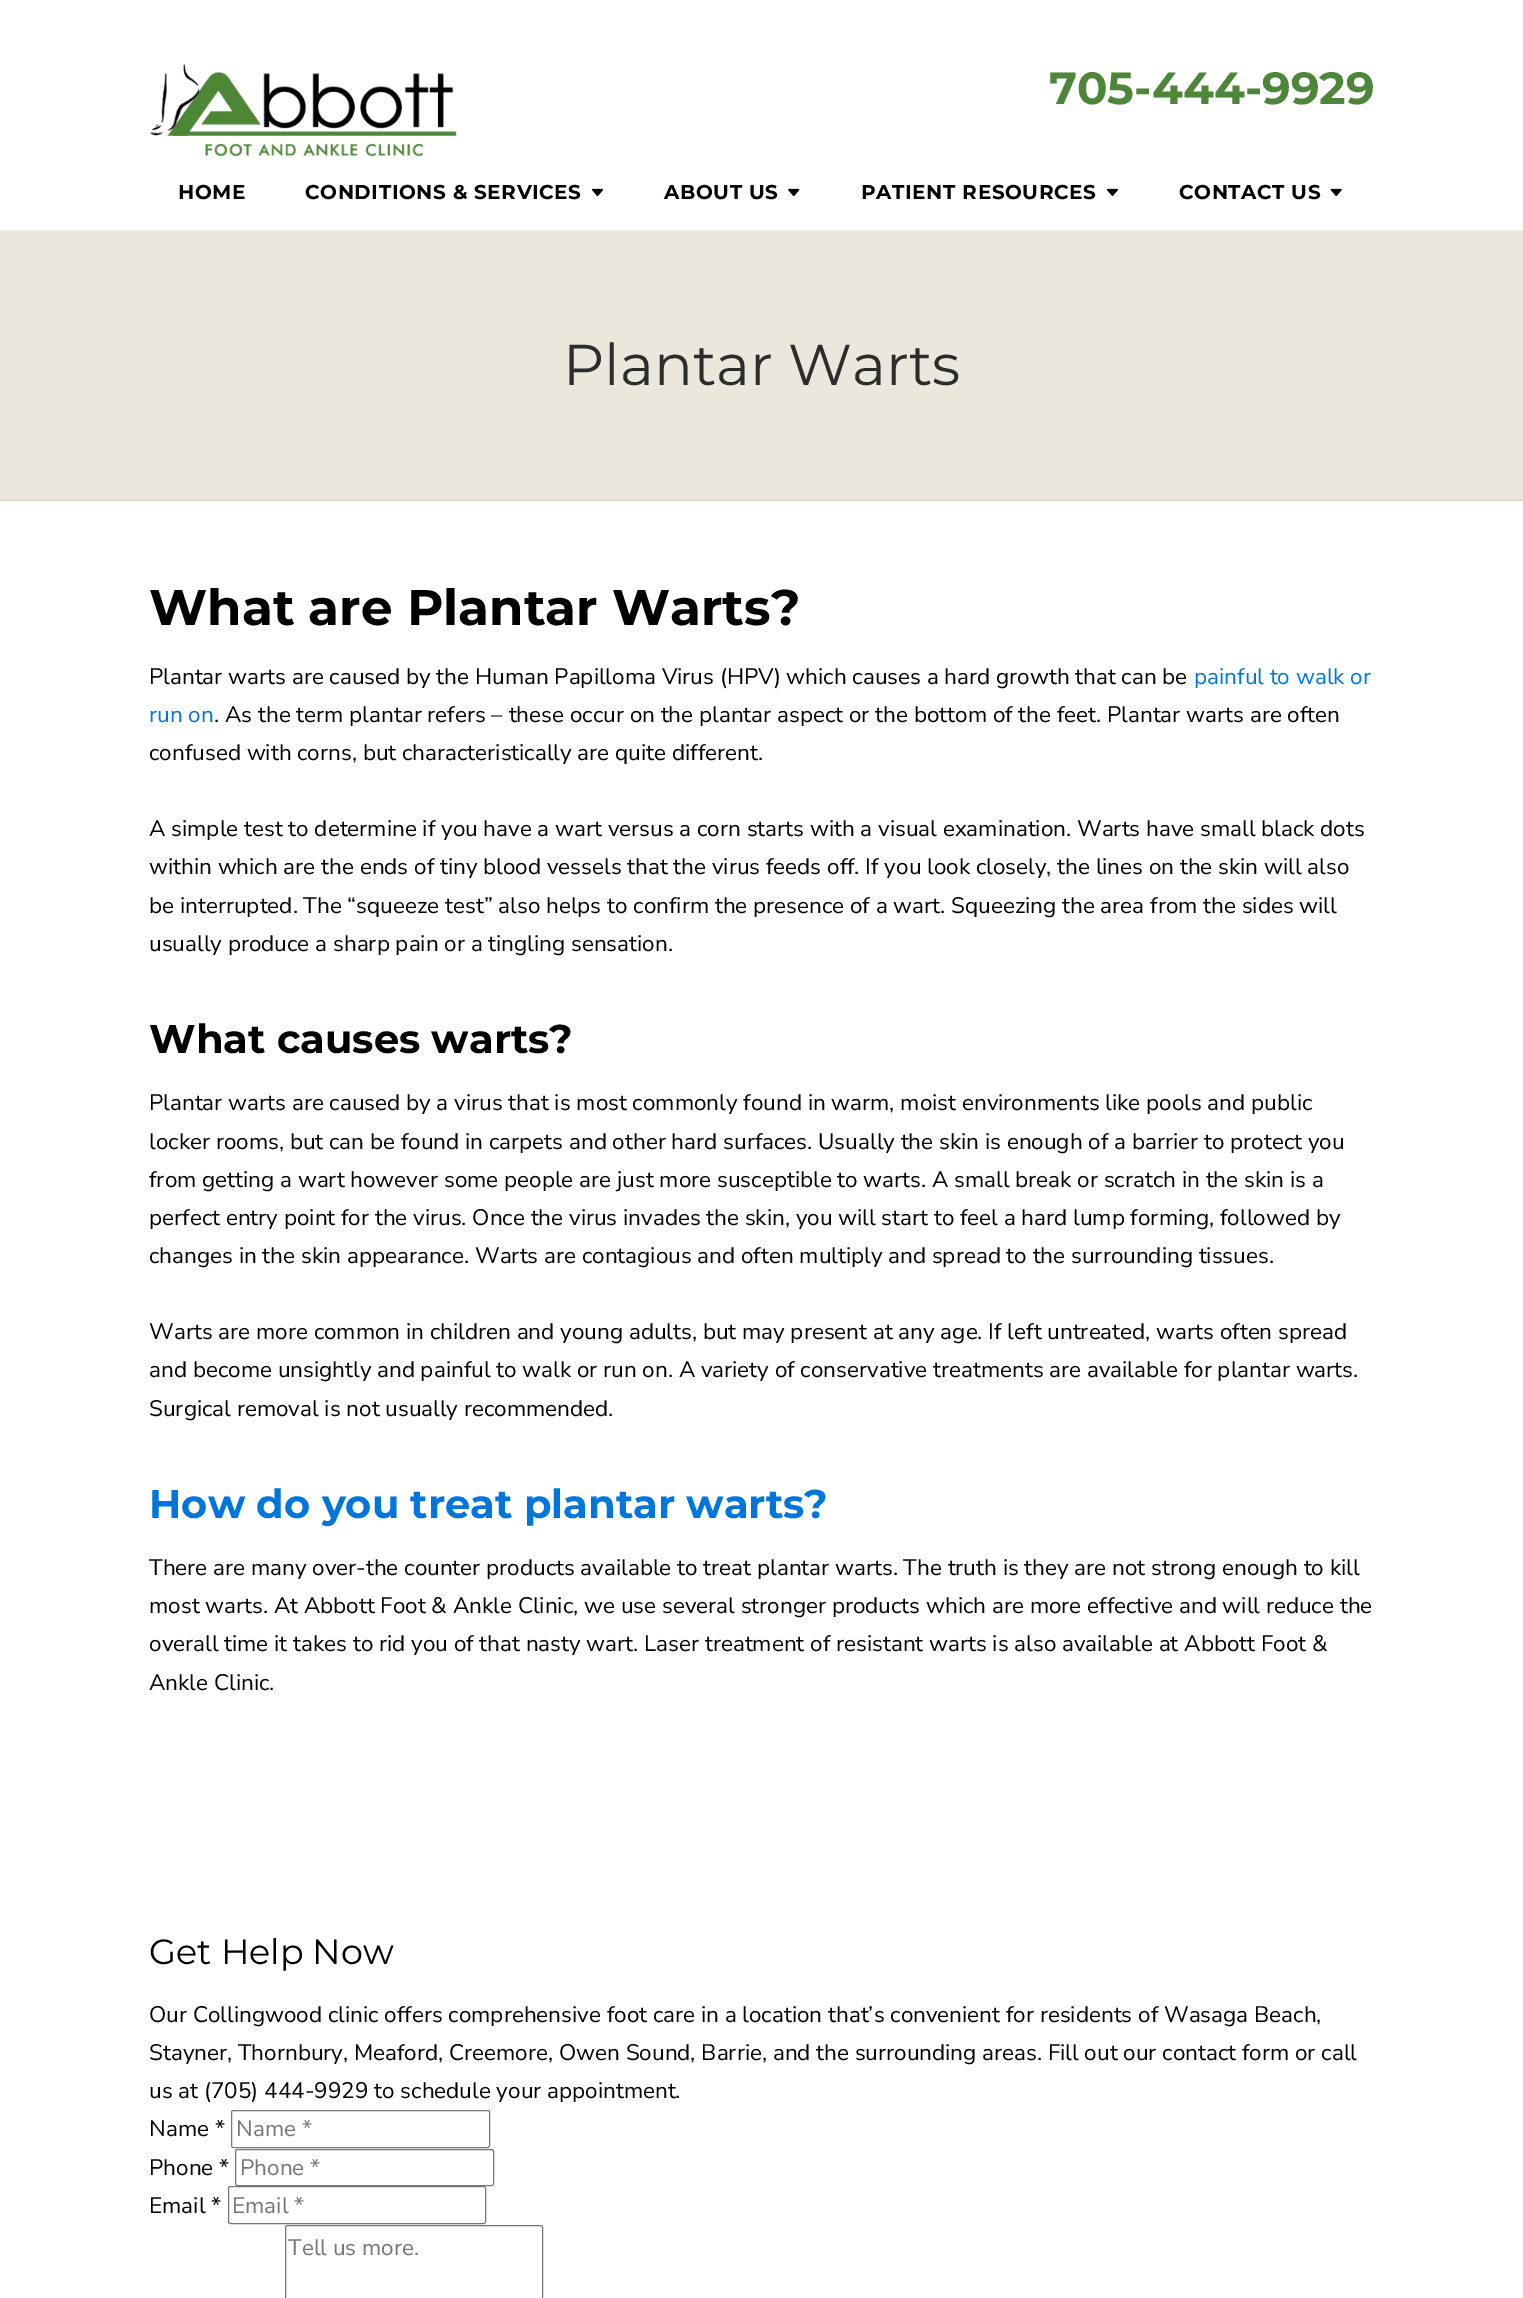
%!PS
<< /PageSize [1523 2298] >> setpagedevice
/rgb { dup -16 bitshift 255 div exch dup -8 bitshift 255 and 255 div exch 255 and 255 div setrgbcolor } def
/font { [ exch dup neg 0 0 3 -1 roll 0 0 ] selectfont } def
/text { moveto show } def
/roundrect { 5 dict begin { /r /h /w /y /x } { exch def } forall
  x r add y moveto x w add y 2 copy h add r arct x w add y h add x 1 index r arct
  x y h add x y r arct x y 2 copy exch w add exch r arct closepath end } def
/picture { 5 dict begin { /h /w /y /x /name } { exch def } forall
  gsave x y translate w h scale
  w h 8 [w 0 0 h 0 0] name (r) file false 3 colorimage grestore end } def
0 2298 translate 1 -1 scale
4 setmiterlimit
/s1 { /Montserrat-Bold 45 font 16#4E8639 rgb } def
/s2 { /Montserrat-Regular 57.5 font 16#2C2C2C rgb } def
/s3 { /Montserrat-Bold 50 font 16#000000 rgb } def
/s4 { /NunitoSans-Regular 22.5 font 16#000000 rgb } def
/s5 { /NunitoSans-Regular 22.5 font 16#0076DC rgb } def
/s6 { /Montserrat-Bold 40 font 16#000000 rgb } def
/s7 { /Montserrat-Bold 40 font 16#0076DC rgb } def
/s8 { /Montserrat-Regular 35 font 16#000000 rgb } def
/s9 { /NunitoSans-Regular 22.5 font 16#757575 rgb } def
16#FFFFFF rgb
0 0 1523 2298 rectfill
(pic1.raw) 150 63 307 94 picture
s1
(705-444-9929) 1049 104 text
/Montserrat-Bold 20 font
16#000000 rgb
178 199 moveto 0.6 0 (HOME) ashow
305 199 moveto 0.6 0 (CONDITIONS & SERVICES) ashow
(pic2.raw) 591 188 13 9 picture
664 199 moveto 0.6 0 (ABOUT US) ashow
(pic3.raw) 788 188 12 9 picture
861 199 moveto 0.6 0 (PATIENT RESOURCES) ashow
(pic2.raw) 1106 188 13 9 picture
1179 199 moveto 0.6 0 (CONTACT US) ashow
(pic4.raw) 1330 188 12 9 picture
16#EBE7DD rgb
0 230 1523 270 rectfill
16#CCD4BC rgb
0 500 1523 1 rectfill
s2
(Plantar Warts) 563 385 text
s3
(What are Plantar Warts?) 149 625 text
s4
(Plantar warts are caused by the Human Papilloma Virus \(HPV\) which causes a hard growth that can be) 149 684 text
s5
(painful to walk or) 1194 684 text
(run on) 149 722 text
s4
(. As the term plantar refers – these occur on the plantar aspect or the bottom of the feet. Plantar warts are often) 214 722 text
(confused with corns, but characteristically are quite different.) 149 760 text
(A simple test to determine if you have a wart versus a corn starts with a visual examination. Warts have small black dots) 149 836 text
(within which are the ends of tiny blood vessels that the virus feeds off. If you look closely, the lines on the skin will also) 149 874 text
(be interrupted. The “squeeze test” also helps to confirm the presence of a wart. Squeezing the area from the sides will) 149 913 text
(usually produce a sharp pain or a tingling sensation.) 149 951 text
s6
(What causes warts?) 149 1053 text
s4
(Plantar warts are caused by a virus that is most commonly found in warm, moist environments like pools and public) 149 1110 text
(locker rooms, but can be found in carpets and other hard surfaces. Usually the skin is enough of a barrier to protect you) 149 1149 text
(from getting a wart however some people are just more susceptible to warts. A small break or scratch in the skin is a) 149 1187 text
(perfect entry point for the virus. Once the virus invades the skin, you will start to feel a hard lump forming, followed by) 149 1225 text
(changes in the skin appearance. Warts are contagious and often multiply and spread to the surrounding tissues.) 149 1263 text
(Warts are more common in children and young adults, but may present at any age. If left untreated, warts often spread) 149 1339 text
(and become unsightly and painful to walk or run on. A variety of conservative treatments are available for plantar warts.) 149 1377 text
(Surgical removal is not usually recommended.) 149 1416 text
s7
(How do you treat plantar warts?) 149 1518 text
s4
(There are many over-the counter products available to treat plantar warts. The truth is they are not strong enough to kill) 149 1575 text
(most warts. At Abbott Foot & Ankle Clinic, we use several stronger products which are more effective and will reduce the) 149 1613 text
(overall time it takes to rid you of that nasty wart. Laser treatment of resistant warts is also available at Abbott Foot &) 149 1651 text
(Ankle Clinic.) 149 1690 text
s8
(Get Help Now) 149 1964 text
s4
(Our Collingwood clinic offers comprehensive foot care in a location that’s convenient for residents of Wasaga Beach,) 149 2022 text
(Stayner, Thornbury, Meaford, Creemore, Owen Sound, Barrie, and the surrounding areas. Fill out our contact form or call) 149 2060 text
(us at \(705\) 444-9929 to schedule your appointment.) 149 2098 text
(Name *) 149 2136 text
16#767676 rgb
231.5 2110.5 258 37 2 roundrect stroke
s9
(Name *) 236 2136 text
s4
(Phone *) 149 2175 text
16#767676 rgb
235.5 2149.5 258 36 2 roundrect stroke
s9
(Phone *) 240 2175 text
s4
(Email *) 149 2213 text
16#767676 rgb
228.5 2186.5 257 37 2 roundrect stroke
s9
(Email *) 232 2213 text
16#767676 rgb
285.5 2225.5 257 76 2 roundrect stroke
s9
(Tell us more.) 288 2255 text
showpage
